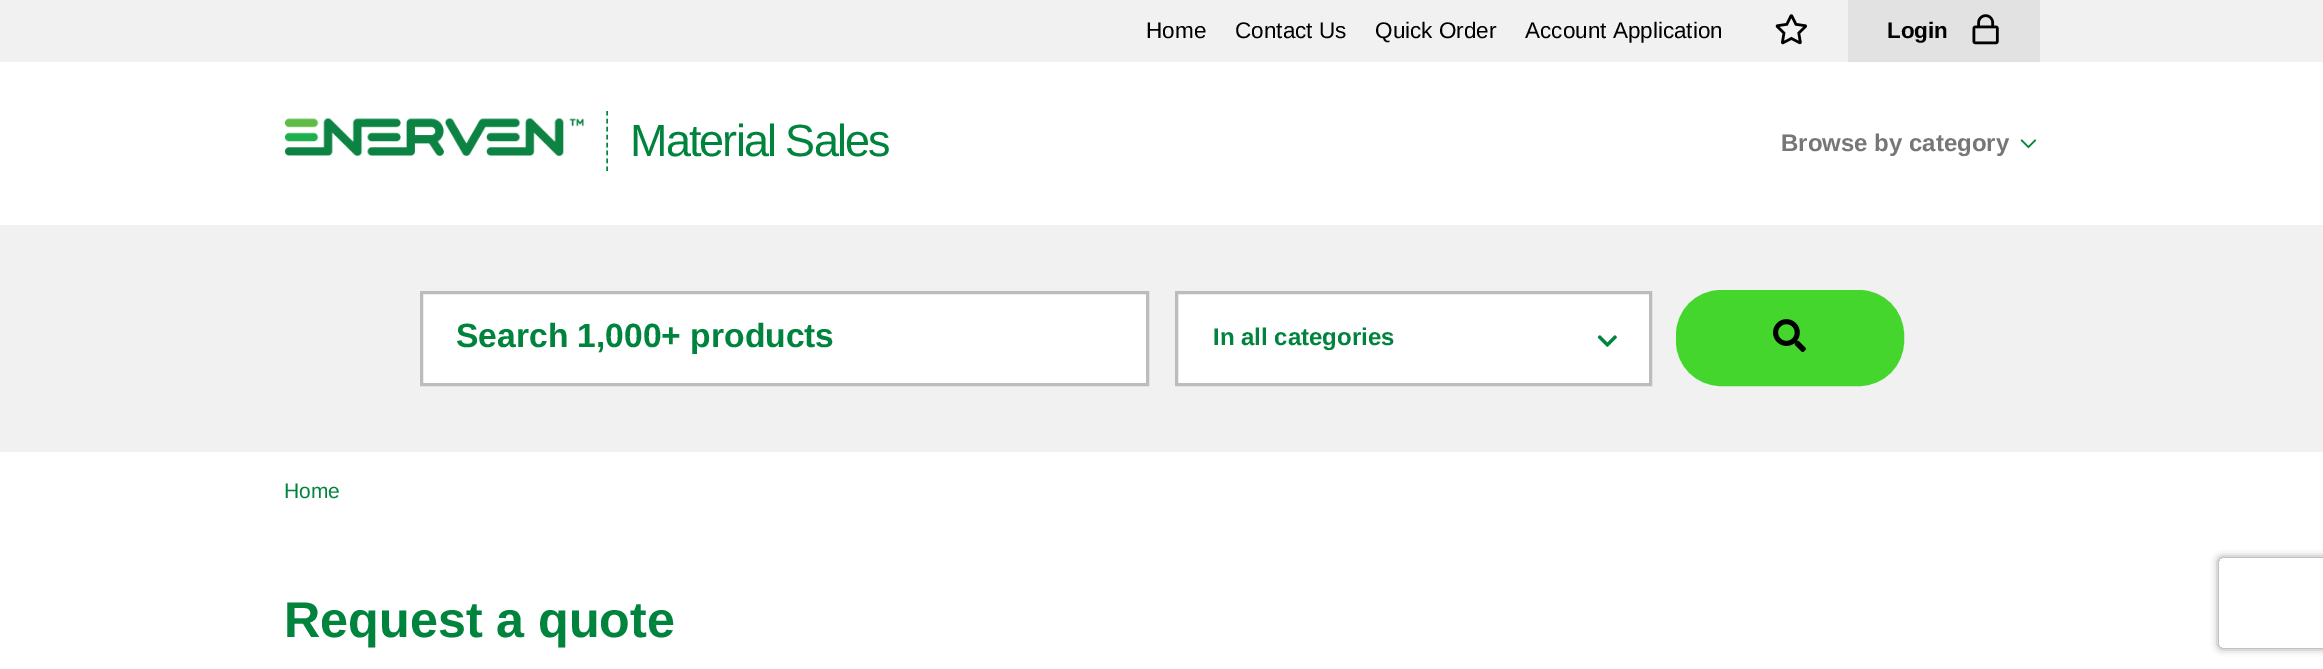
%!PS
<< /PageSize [2323 669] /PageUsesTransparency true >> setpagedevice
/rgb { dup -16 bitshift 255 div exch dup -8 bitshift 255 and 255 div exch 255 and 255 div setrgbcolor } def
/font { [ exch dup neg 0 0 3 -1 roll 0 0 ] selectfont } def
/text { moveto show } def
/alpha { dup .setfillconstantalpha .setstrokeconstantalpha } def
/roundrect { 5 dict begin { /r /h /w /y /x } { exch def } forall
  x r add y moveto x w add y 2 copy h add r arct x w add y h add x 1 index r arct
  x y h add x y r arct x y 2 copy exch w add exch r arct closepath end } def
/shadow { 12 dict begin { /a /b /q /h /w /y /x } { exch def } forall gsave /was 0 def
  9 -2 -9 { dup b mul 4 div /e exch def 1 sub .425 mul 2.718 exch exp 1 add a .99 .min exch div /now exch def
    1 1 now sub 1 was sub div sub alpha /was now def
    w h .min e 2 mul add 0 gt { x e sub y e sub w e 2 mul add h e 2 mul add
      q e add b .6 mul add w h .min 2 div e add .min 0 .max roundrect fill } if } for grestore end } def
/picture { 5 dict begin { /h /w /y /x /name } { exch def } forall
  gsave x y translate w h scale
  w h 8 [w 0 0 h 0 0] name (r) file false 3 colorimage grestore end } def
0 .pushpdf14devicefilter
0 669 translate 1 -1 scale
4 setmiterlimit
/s1 { /LiberationSans-Regular 22.5 font 16#000000 rgb } def
/s2 { /LiberationSans-Bold 22.5 font 16#000000 rgb } def
/s3 { /LiberationSans-Bold 24 font 16#767677 rgb } def
/s4 { /LiberationSans-Bold 33.6 font 16#00843D rgb } def
/s5 { /LiberationSans-Bold 24 font 16#00843D rgb } def
/s6 { /LiberationSans-Regular 21 font 16#00843D rgb } def
/s7 { /LiberationSans-Bold 50.25 font 16#00843D rgb } def
16#FFFFFF rgb
0 0 2323 669 rectfill
16#F1F1F1 rgb
0 0 2323 62 rectfill
s1
(Home) 1146 38 text
(Contact Us) 1235 38 text
(Quick Order) 1375 38 text
(Account Application) 1525 38 text
(pic1.raw) 1775 14 32 31 picture
16#E2E2E2 rgb
1848 0 192 62 rectfill
s2
(Login) 1887 38 text
(pic2.raw) 1972 14 27 31 picture
(pic3.raw) 285 118 299 38 picture
16#00843D rgb
1.5 setlinewidth
[4.5 3.44] 0 setdash
607 111 moveto 607 171 lineto stroke
/LiberationSans-Regular 45 font
630 156 moveto -1.9 0 (Material Sales) ashow
s3
(Browse by category) 1781 151 text
(pic4.raw) 2020 139 17 10 picture
16#F1F1F1 rgb
0 225 2323 227 rectfill
16#FFFFFF rgb
421.5 292.5 moveto 1147.5 292.5 lineto 1147.5 384.5 lineto 421.5 384.5 lineto closepath gsave fill grestore
16#BBBCBC rgb
3 setlinewidth
[] 0 setdash
stroke
s4
(Search 1,000+ products) 456 347 text
16#FFFFFF rgb
1176.5 292.5 moveto 1650.5 292.5 lineto 1650.5 384.5 lineto 1176.5 384.5 lineto closepath gsave fill grestore
16#BBBCBC rgb
stroke
s5
(In all categories) 1213 345 text
(pic5.raw) 1597 335 20 12 picture
16#44D62C rgb
1677.5 291.5 225 93 43.5 roundrect gsave fill grestore
stroke
(pic6.raw) 1773 319 33 34 picture
s6
(Home) 284 498 text
s7
(Request a quote) 284 637 text
gsave
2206 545 moveto 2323 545 lineto 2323 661 lineto 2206 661 lineto closepath 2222 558 moveto 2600 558 lineto 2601.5 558 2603 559.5 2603 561 curveto 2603 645 lineto 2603 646.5 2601.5 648 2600 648 curveto 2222 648 lineto 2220.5 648 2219 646.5 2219 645 curveto 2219 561 lineto 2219 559.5 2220.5 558 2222 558 curveto closepath eoclip newpath
16#808080 rgb
2219 558 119 90 3 4 1 shadow
grestore
.poppdf14devicefilter showpage
